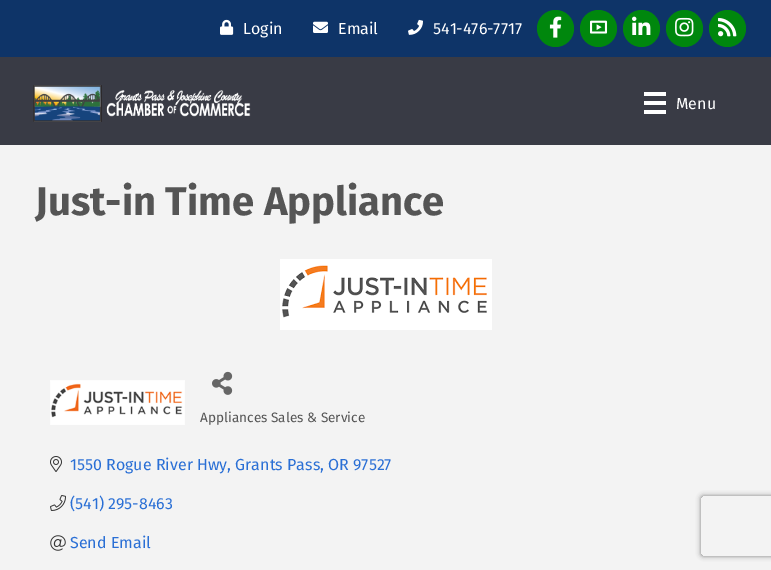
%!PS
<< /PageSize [771 570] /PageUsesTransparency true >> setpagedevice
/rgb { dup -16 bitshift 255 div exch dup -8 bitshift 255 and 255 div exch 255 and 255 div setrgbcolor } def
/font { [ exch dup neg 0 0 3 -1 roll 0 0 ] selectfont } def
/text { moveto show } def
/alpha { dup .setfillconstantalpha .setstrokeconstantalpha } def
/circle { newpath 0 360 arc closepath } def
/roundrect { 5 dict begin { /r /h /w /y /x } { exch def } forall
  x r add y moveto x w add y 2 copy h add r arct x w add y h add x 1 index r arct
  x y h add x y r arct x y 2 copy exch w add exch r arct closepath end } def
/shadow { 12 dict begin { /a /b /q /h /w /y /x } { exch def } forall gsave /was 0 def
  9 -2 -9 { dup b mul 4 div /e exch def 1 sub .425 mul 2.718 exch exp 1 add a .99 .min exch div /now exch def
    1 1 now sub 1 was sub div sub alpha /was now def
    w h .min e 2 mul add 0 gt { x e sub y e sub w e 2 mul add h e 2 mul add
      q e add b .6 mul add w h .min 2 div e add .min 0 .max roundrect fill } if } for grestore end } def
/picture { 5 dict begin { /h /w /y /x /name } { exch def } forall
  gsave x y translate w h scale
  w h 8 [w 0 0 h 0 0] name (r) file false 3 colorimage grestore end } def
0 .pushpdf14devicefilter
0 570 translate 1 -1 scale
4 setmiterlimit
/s1 { /FiraSans-Regular 16 font 16#FFFFFF rgb } def
/s2 { /FiraSans-Bold 40 font 16#555555 rgb } def
/s3 { /FiraSans-Regular 13.6 font 16#555555 rgb } def
/s4 { /FiraSans-Regular 16 font 16#2A6FD5 rgb } def
16#393B45 rgb
0 0 771 570 rectfill
16#0E3468 rgb
0 0 771 57 rectfill
(pic1.raw) 220 19 14 16 picture
s1
(Login) 243 34 text
(pic2.raw) 313 21 15 12 picture
(Email) 338 34 text
(pic3.raw) 408 19 15 16 picture
(541-476-7717) 433 34 text
16#00870D rgb
555.5 28.5 18.5 circle fill
(pic4.raw) 549 16 13 22 picture
598.5 28.5 18.5 circle fill
(pic5.raw) 590 20 18 14 picture
641.5 28.5 18.5 circle fill
(pic6.raw) 632 16 19 19 picture
684.5 28.5 18.5 circle fill
(pic7.raw) 675 17 19 20 picture
727.5 28.5 18.5 circle fill
(pic8.raw) 718 17 19 20 picture
(pic9.raw) 33 85 218 37 picture
16#FFFFFF rgb
644 92 22 4 rectfill
644 101 22 4 rectfill
644 110 22 4 rectfill
(Menu) 676 109 text
16#F3F3F3 rgb
0 145 771 425 rectfill
s2
(Just-in Time Appliance) 35 215 text
(pic10.raw) 280 259 212 71 picture
(pic11.raw) 50 380 135 45 picture
(pic12.raw) 212 371 21 24 picture
s3
(Appliances Sales & Service) 200 422 text
(pic13.raw) 50 456 12 16 picture
s4
(1550 Rogue River Hwy, Grants Pass, OR 97527) 70 470 text
(pic14.raw) 50 495 16 16 picture
(\(541\) 295-8463) 70 509 text
(pic15.raw) 50 535 16 16 picture
(Send Email) 70 548 text
gsave
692 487 moveto 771 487 lineto 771 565 lineto 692 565 lineto closepath 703 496 moveto 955 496 lineto 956 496 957 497 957 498 curveto 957 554 lineto 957 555 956 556 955 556 curveto 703 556 lineto 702 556 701 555 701 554 curveto 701 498 lineto 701 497 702 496 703 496 curveto closepath eoclip newpath
16#808080 rgb
701 496 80 60 2 2.5 1 shadow
grestore
.poppdf14devicefilter showpage
